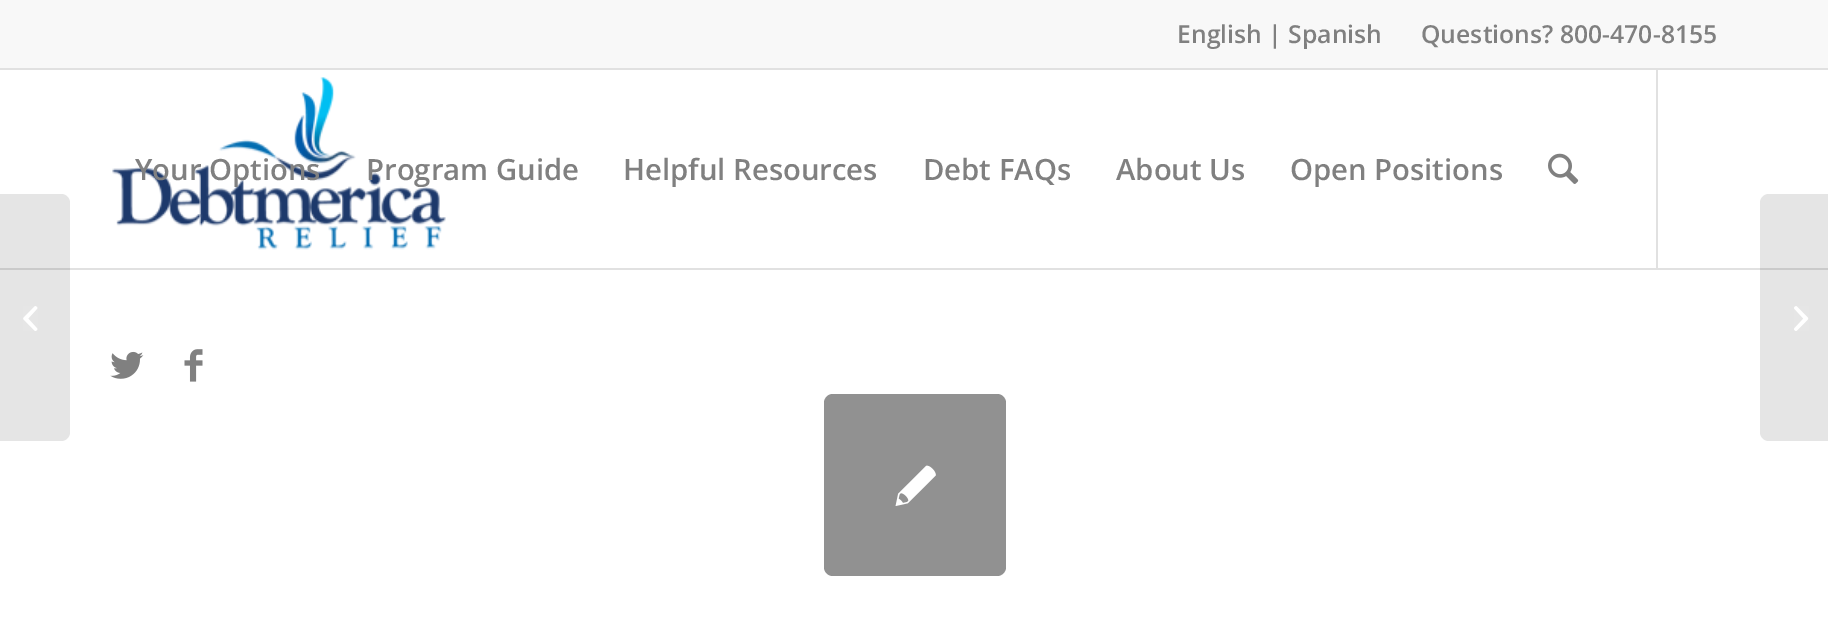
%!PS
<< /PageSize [1828 632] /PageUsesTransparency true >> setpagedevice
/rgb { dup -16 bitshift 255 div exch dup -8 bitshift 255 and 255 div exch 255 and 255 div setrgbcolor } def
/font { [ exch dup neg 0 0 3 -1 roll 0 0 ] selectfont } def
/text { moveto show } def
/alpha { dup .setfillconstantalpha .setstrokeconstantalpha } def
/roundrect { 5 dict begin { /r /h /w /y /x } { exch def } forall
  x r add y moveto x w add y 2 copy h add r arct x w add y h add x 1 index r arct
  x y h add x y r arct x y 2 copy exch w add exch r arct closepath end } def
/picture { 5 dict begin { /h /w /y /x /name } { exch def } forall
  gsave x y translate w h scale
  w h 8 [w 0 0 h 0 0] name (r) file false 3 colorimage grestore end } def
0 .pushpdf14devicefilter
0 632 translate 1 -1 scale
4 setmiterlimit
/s1 { /OpenSans-SemiBold 24.75 font 16#808080 rgb } def
/s2 { /OpenSans-SemiBold 29.25 font 16#808080 rgb } def
16#FFFFFF rgb
0 0 1828 632 rectfill
16#F8F8F8 rgb
0 0 1828 68 rectfill
16#E1E1E1 rgb
0 68 1828 2 rectfill
s1
(English | Spanish) 1177 43 text
(Questions? 800-470-8155) 1421 43 text
16#E1E1E1 rgb
0 268 1828 2 rectfill
(pic1.raw) 112 77 334 173 picture
1656 70 2 198 rectfill
s2
(Your Options) 135 180 text
(Program Guide) 366 180 text
(Helpful Resources) 623 180 text
(Debt FAQs) 923 180 text
(About Us) 1116 180 text
(Open Positions) 1290 180 text
(pic2.raw) 1548 153 31 31 picture
(pic3.raw) 110 351 34 28 picture
(pic4.raw) 184 349 19 33 picture
0.1 alpha
16#000000 rgb
0 194 moveto 61 194 lineto 66 194 70 198 70 203 curveto 70 432 lineto 70 437 66 441 61 441 curveto 0 441 lineto closepath fill
1 alpha
(pic5.raw) 23 306 15 25 picture
0.1 alpha
1769 194 moveto 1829 194 lineto 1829 441 lineto 1769 441 lineto 1764 441 1760 437 1760 432 curveto 1760 203 lineto 1760 198 1764 194 1769 194 curveto closepath fill
1 alpha
(pic6.raw) 1794 306 15 25 picture
16#919191 rgb
824 394 182 182 9 roundrect fill
(pic7.raw) 895 465 41 41 picture
.poppdf14devicefilter showpage
